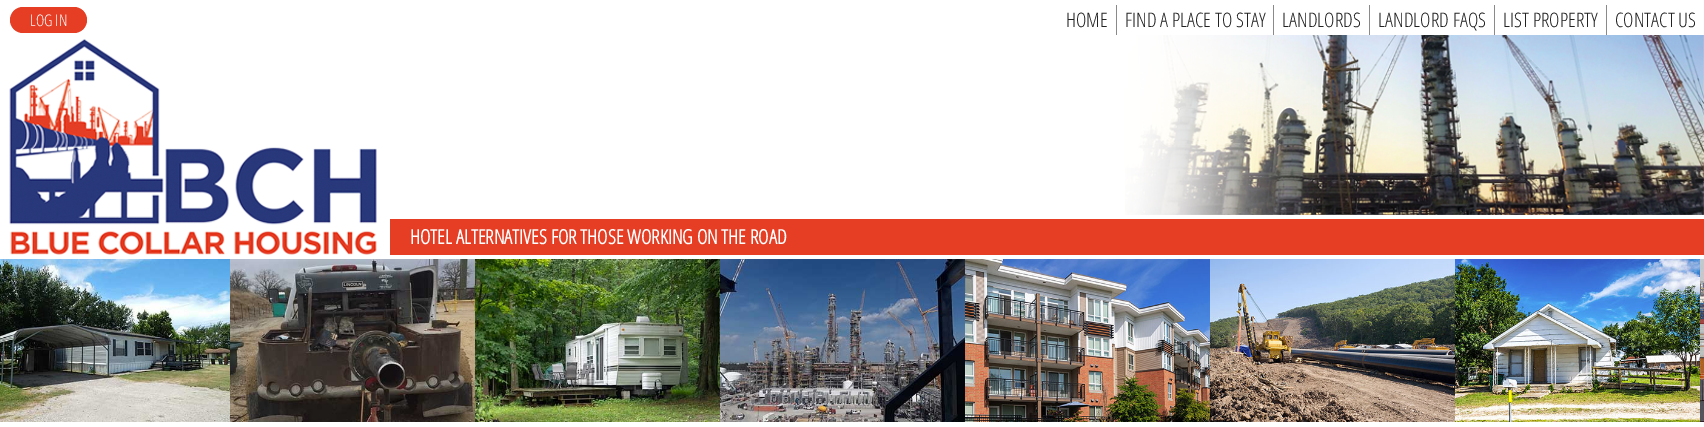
%!PS
<< /PageSize [1704 427] >> setpagedevice
/rgb { dup -16 bitshift 255 div exch dup -8 bitshift 255 and 255 div exch 255 and 255 div setrgbcolor } def
/font { [ exch dup neg 0 0 3 -1 roll 0 0 ] selectfont } def
/text { moveto show } def
/roundrect { 5 dict begin { /r /h /w /y /x } { exch def } forall
  x r add y moveto x w add y 2 copy h add r arct x w add y h add x 1 index r arct
  x y h add x y r arct x y 2 copy exch w add exch r arct closepath end } def
/picture { 5 dict begin { /h /w /y /x /name } { exch def } forall
  gsave x y translate w h scale
  w h 8 [w 0 0 h 0 0] name (r) file false 3 colorimage grestore end } def
0 427 translate 1 -1 scale
4 setmiterlimit
/s1 { /OpenSansCondensed-Light 16 font 16#FFFFFF rgb } def
/s2 { /OpenSansCondensed-Light 20 font 16#222222 rgb } def
/s3 { /OpenSansCondensed-Bold 20 font 16#FFFFFF rgb } def
16#FFFFFF rgb
0 0 1704 427 rectfill
16#E53E25 rgb
10 7 77 26 13 roundrect fill
s1
(LOG IN) 30 26 text
16#8A8A8A rgb
1116 5 1 30 rectfill
s2
(HOME) 1066 27 text
16#8A8A8A rgb
1273 5 1 30 rectfill
s2
(FIND A PLACE TO STAY) 1125 27 text
16#8A8A8A rgb
1369 5 1 30 rectfill
s2
(LANDLORDS) 1282 27 text
16#8A8A8A rgb
1494 5 1 30 rectfill
s2
(LANDLORD FAQS) 1378 27 text
16#8A8A8A rgb
1606 5 1 30 rectfill
s2
(LIST PROPERTY) 1503 27 text
(CONTACT US) 1615 27 text
(pic1.raw) 9 39 368 216 picture
16#E53E25 rgb
390 219 1314 36 rectfill
s3
(HOTEL ALTERNATIVES FOR THOSE WORKING ON THE ROAD) 410 244 text
(pic2.raw) 1125 35 579 180 picture
(pic3.raw) 0 259 230 163 picture
(pic4.raw) 230 259 245 163 picture
(pic5.raw) 475 259 245 163 picture
(pic6.raw) 720 259 245 163 picture
(pic7.raw) 965 259 245 163 picture
(pic8.raw) 1210 259 245 163 picture
(pic9.raw) 1455 259 245 163 picture
(pic10.raw) 1700 259 4 163 picture
showpage
